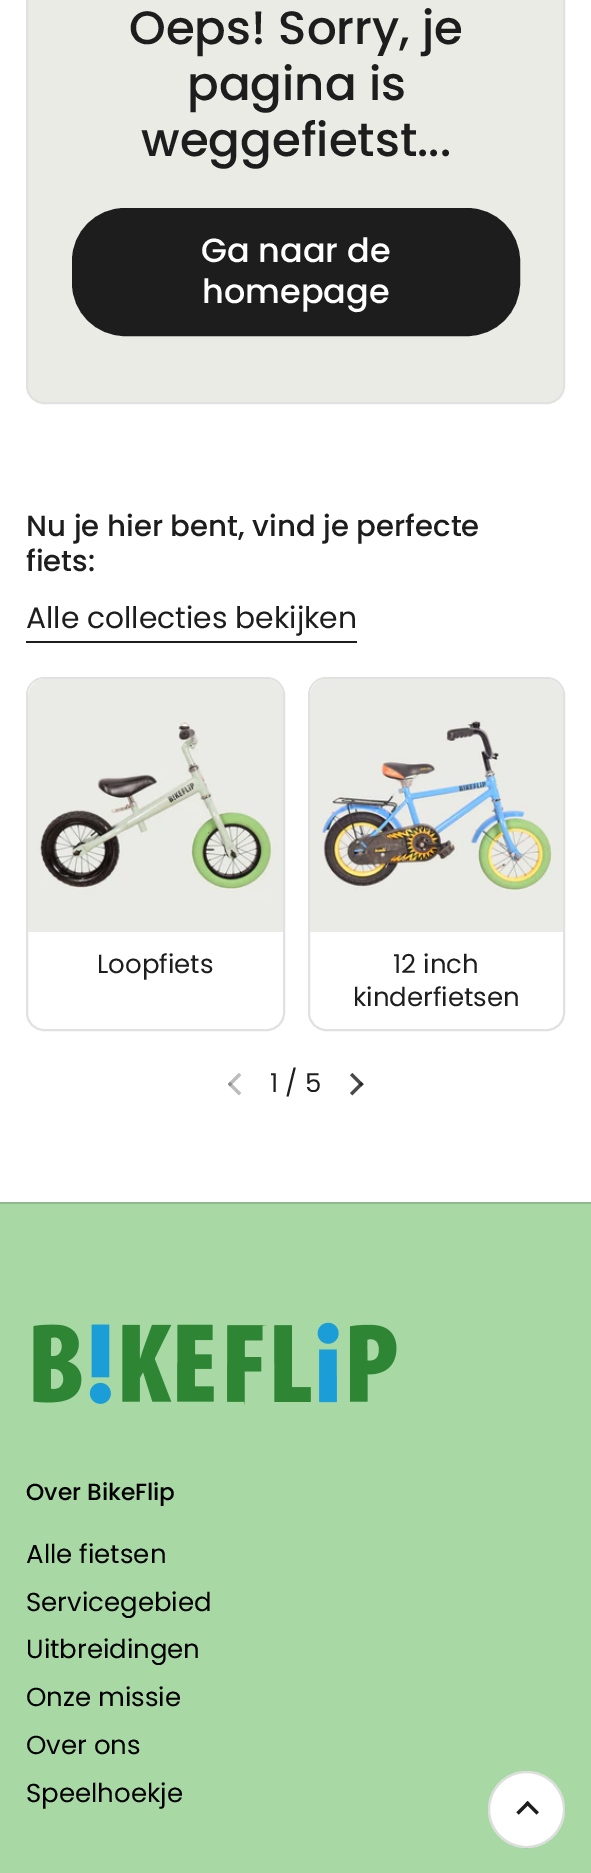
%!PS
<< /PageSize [591 1873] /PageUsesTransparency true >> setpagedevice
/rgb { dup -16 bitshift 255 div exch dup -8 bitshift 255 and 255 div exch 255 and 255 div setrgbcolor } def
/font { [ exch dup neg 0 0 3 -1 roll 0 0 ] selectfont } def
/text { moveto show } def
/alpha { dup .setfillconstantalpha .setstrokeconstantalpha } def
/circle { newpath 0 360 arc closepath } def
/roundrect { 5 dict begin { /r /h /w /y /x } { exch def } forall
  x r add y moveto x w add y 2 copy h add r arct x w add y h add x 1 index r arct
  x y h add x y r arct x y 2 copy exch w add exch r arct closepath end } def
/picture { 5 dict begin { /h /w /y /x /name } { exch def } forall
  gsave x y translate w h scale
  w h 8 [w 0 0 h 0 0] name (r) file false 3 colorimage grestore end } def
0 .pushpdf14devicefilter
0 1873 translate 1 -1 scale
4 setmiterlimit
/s1 { /Poppins-Medium 46.75 font 16#1D1D1D rgb } def
/s2 { /Poppins-Medium 33.5 font 16#FFFFFF rgb } def
/s3 { /Poppins-Medium 29.2 font 16#1D1D1D rgb } def
/s4 { /Poppins-Regular 29.75 font 16#1D1D1D rgb } def
/s5 { /Poppins-Regular 26 font 16#1D1D1D rgb } def
/s6 { /Poppins-Medium 23.25 font 16#000000 rgb } def
/s7 { /Poppins-Regular 26 font 16#000000 rgb } def
16#FFFFFF rgb
0 0 591 1873 rectfill
16#EBEBE5 rgb
27 -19 537 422 17 roundrect gsave fill grestore
16#E1E1E1 rgb
2 setlinewidth
stroke
s1
(Oeps! Sorry, je) 129 44 text
(pagina is) 187 100 text
(weggefietst...) 141 156 text
73 209 446 126 52 roundrect gsave fill grestore
stroke
s2
(Ga naar de) 201 262 text
(homepage) 202 303 text
s3
(Nu je hier bent, vind je perfecte) 26 536 text
(fiets:) 26 571 text
s4
(Alle collecties bekijken) 26 628 text
26 641 331 2 rectfill
16#E1E1E1 rgb
27 678 257 352 17 roundrect stroke
(pic1.raw) 28 679 255 253 picture
s5
(Loopfiets) 97 973 text
16#E1E1E1 rgb
309 678 255 352 17 roundrect stroke
(pic2.raw) 310 679 253 253 picture
s5
(12 inch) 393 973 text
(kinderfietsen) 353 1006 text
(pic3.raw) 228 1073 14 23 picture
(1 / 5) 270 1092 text
(pic4.raw) 350 1073 14 23 picture
16#A8D9A5 rgb
0 1204 591 669 rectfill
16#8FB88C rgb
0 1202 591 2 rectfill
(pic5.raw) 33 1322 364 83 picture
s6
(Over BikeFlip) 26 1500 text
s7
(Alle fietsen) 26 1563 text
(Servicegebied) 26 1611 text
(Uitbreidingen) 26 1658 text
(Onze missie) 26 1706 text
(Over ons) 26 1754 text
(Speelhoekje) 26 1802 text
16#FFFFFF rgb
526.5 1809.5 38.5 circle fill
0.15 alpha
16#1D1D1D rgb
526.5 1809.5 37.5 circle stroke
1 alpha
(pic6.raw) 516 1801 23 14 picture
.poppdf14devicefilter showpage
